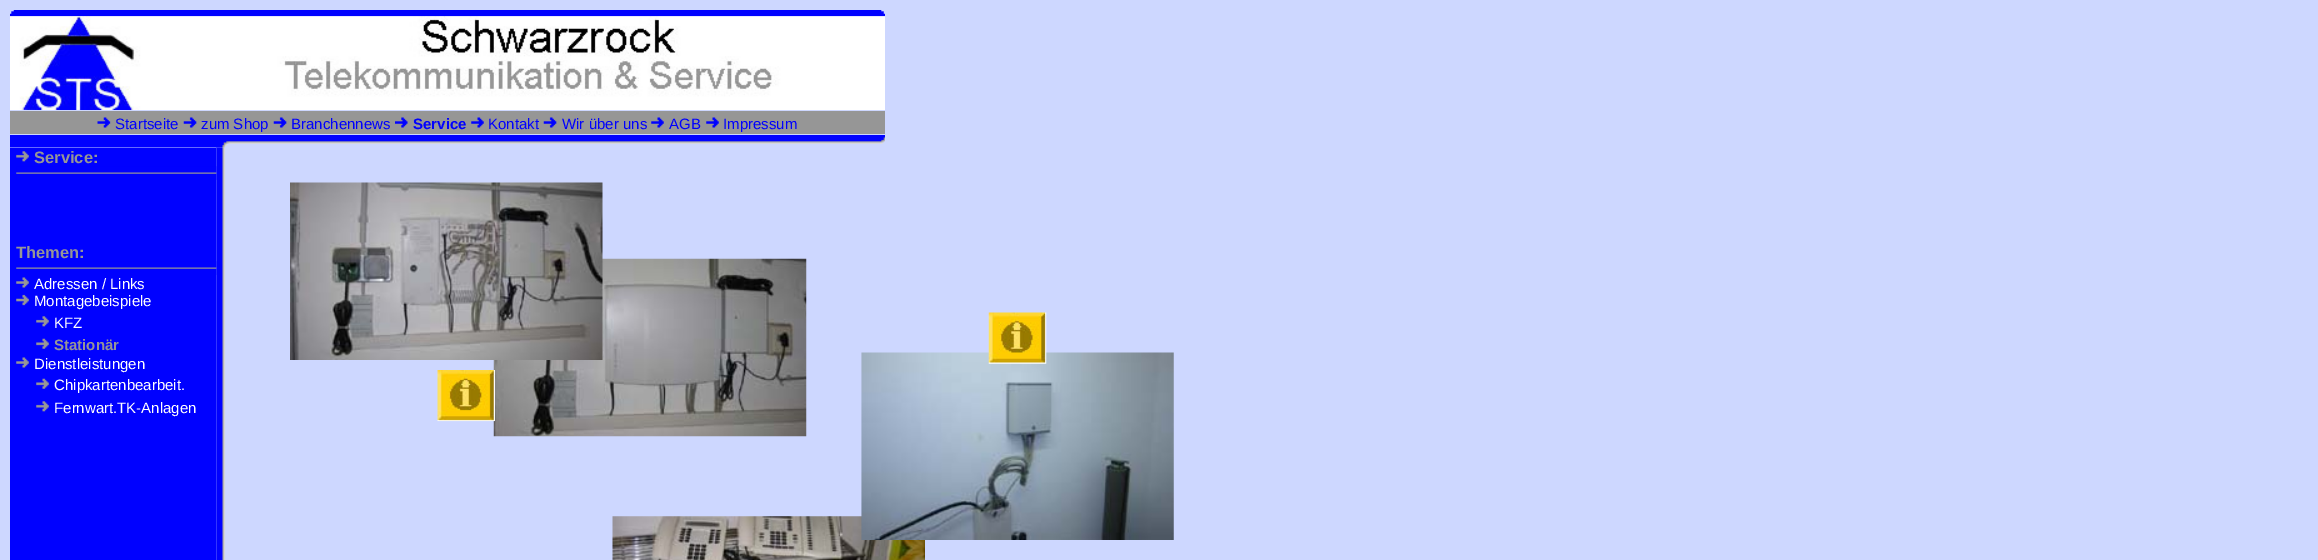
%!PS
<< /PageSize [2318 560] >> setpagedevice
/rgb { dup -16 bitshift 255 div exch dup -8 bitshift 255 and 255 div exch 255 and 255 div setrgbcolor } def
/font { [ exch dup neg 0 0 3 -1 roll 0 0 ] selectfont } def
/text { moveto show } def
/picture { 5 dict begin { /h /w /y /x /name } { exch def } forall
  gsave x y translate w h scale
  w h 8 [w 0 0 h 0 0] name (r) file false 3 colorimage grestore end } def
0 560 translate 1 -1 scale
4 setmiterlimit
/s1 { /LiberationSans-Regular 15 font 16#0000FF rgb } def
/s2 { /LiberationSans-Bold 15 font 16#0000FF rgb } def
/s3 { /LiberationSans-Bold 16.5 font 16#969696 rgb } def
/s4 { /LiberationSans-Regular 15 font 16#FFFFFF rgb } def
/s5 { /LiberationSans-Bold 15 font 16#969696 rgb } def
16#CDD7FF rgb
0 0 2318 560 rectfill
(pic1.raw) 10 10 875 7 picture
(pic2.raw) 10 16 875 94 picture
16#969696 rgb
10 111 875 23 rectfill
(pic3.raw) 97 117 14 11 picture
s1
(Startseite) 115 129 text
(pic4.raw) 183 117 14 11 picture
(zum Shop) 201 129 text
(pic5.raw) 273 117 14 11 picture
(Branchennews) 291 129 text
(pic6.raw) 395 117 13 11 picture
s2
(Service) 413 129 text
(pic7.raw) 471 117 13 11 picture
s1
(Kontakt) 488 129 text
(pic4.raw) 543 117 14 11 picture
(Wir über uns) 562 129 text
(pic7.raw) 651 117 13 11 picture
(AGB) 669 129 text
(pic7.raw) 706 117 13 11 picture
(Impressum) 723 129 text
(pic9.raw) 216 147 10 413 picture
(pic8.raw) 10 135 875 13 picture
16#0001FF rgb
10 148 206 412 rectfill
(pic10.raw) 16 151 13 11 picture
s3
(Service:) 34 163 text
(pic11.raw) 16 166 201 14 picture
(Themen:) 16 258 text
(pic11.raw) 16 261 201 14 picture
(pic12.raw) 16 277 13 11 picture
s4
(Adressen / Links) 34 289 text
(pic13.raw) 16 294 13 12 picture
(Montagebeispiele) 34 306 text
(pic10.raw) 36 316 13 11 picture
(KFZ) 54 328 text
(pic14.raw) 36 338 13 11 picture
s5
(Stationär) 54 350 text
(pic12.raw) 16 357 13 11 picture
s4
(Dienstleistungen) 34 369 text
(pic14.raw) 36 378 13 11 picture
(Chipkartenbearbeit.) 54 390 text
(pic10.raw) 36 401 13 11 picture
(Fernwart.TK-Anlagen) 54 413 text
(pic16.raw) 493 258 314 179 picture
(pic15.raw) 290 182 313 178 picture
(pic20.raw) 612 516 313 44 picture
(pic19.raw) 861 352 313 188 picture
(pic17.raw) 988 312 59 52 picture
(pic18.raw) 437 370 58 52 picture
showpage
